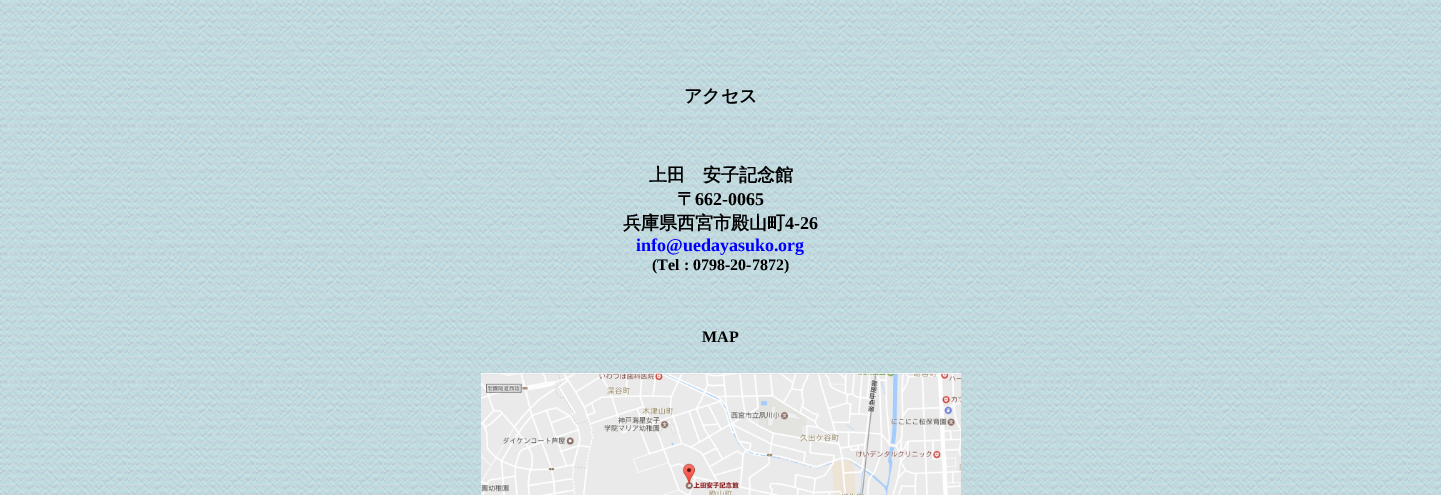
%!PS
<< /PageSize [1441 495] >> setpagedevice
/rgb { dup -16 bitshift 255 div exch dup -8 bitshift 255 and 255 div exch 255 and 255 div setrgbcolor } def
/font { [ exch dup neg 0 0 3 -1 roll 0 0 ] selectfont } def
/text { moveto show } def
/picture { 5 dict begin { /h /w /y /x /name } { exch def } forall
  gsave x y translate w h scale
  w h 8 [w 0 0 h 0 0] name (r) file false 3 colorimage grestore end } def
0 495 translate 1 -1 scale
4 setmiterlimit
/s1 { /WenQuanYiZenHei-Bold 18 font 16#000000 rgb } def
/s2 { /LiberationSerif-Bold 18 font 16#000000 rgb } def
/s3 { /LiberationSerif-Bold 18 font 16#0000FF rgb } def
/s4 { /LiberationSerif-Bold 16 font 16#000000 rgb } def
16#FFFFFF rgb
0 0 1441 495 rectfill
(pic1.raw) 0 0 1441 495 picture
s1
(アクセス) 684 102 text
(上田　安子記念館) 649 181 text
(〒) 677 205 text
s2
(662-0065) 695 205 text
s1
(兵庫県西宮市殿山町) 623 229 text
s2
(4-26) 785 229 text
s3
(info@uedayasuko.org) 636 251 text
s4
(\(Tel : 0798-20-7872\)) 652 270 text
(MAP) 702 342 text
(pic2.raw) 481 373 480 122 picture
showpage
